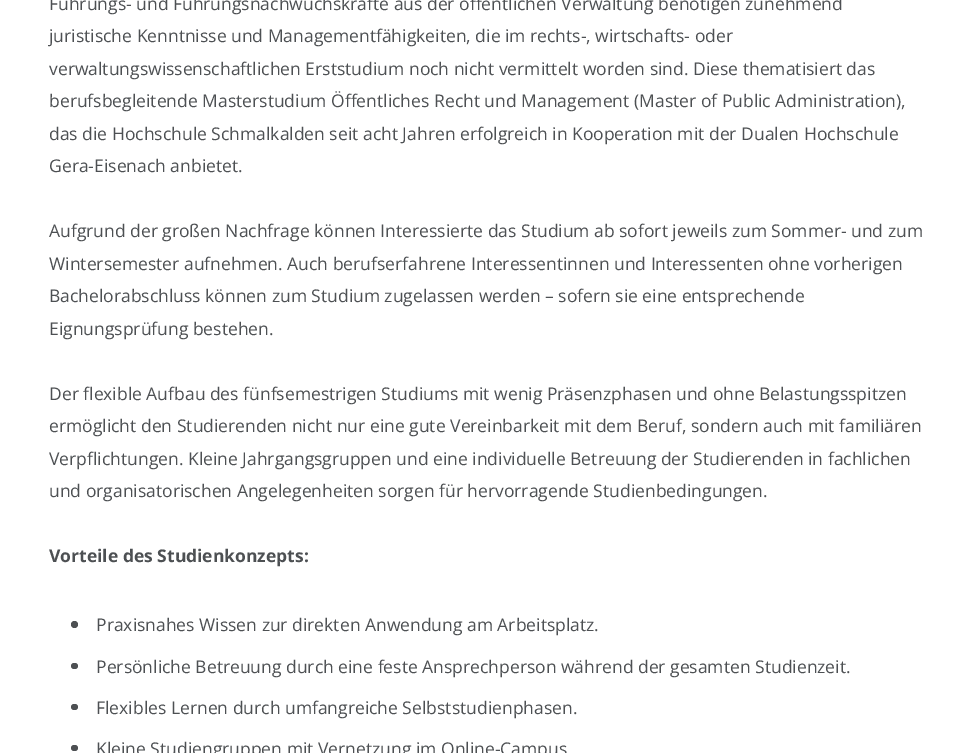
%!PS
<< /PageSize [972 753] >> setpagedevice
/rgb { dup -16 bitshift 255 div exch dup -8 bitshift 255 and 255 div exch 255 and 255 div setrgbcolor } def
/font { [ exch dup neg 0 0 3 -1 roll 0 0 ] selectfont } def
/text { moveto show } def
/circle { newpath 0 360 arc closepath } def
/roundrect { 5 dict begin { /r /h /w /y /x } { exch def } forall
  x r add y moveto x w add y 2 copy h add r arct x w add y h add x 1 index r arct
  x y h add x y r arct x y 2 copy exch w add exch r arct closepath end } def
0 753 translate 1 -1 scale
4 setmiterlimit
/s1 { /OpenSans-Regular 17.5 font 16#4D5053 rgb } def
/s2 { /OpenSans-Bold 17.5 font 16#4D5053 rgb } def
16#FFFFFF rgb
0 0 972 753 rectfill
s1
(Führungs- und Führungsnachwuchskräfte aus der öffentlichen Verwaltung benötigen zunehmend) 49 10 text
(juristische Kenntnisse und Managementfähigkeiten, die im rechts-, wirtschafts- oder) 49 42 text
(verwaltungswissenschaftlichen Erststudium noch nicht vermittelt worden sind. Diese thematisiert das) 49 75 text
(berufsbegleitende Masterstudium Öffentliches Recht und Management \(Master of Public Administration\),) 49 107 text
(das die Hochschule Schmalkalden seit acht Jahren erfolgreich in Kooperation mit der Dualen Hochschule) 49 140 text
(Gera-Eisenach anbietet.) 49 172 text
(Aufgrund der großen Nachfrage können Interessierte das Studium ab sofort jeweils zum Sommer- und zum) 49 237 text
(Wintersemester aufnehmen. Auch berufserfahrene Interessentinnen und Interessenten ohne vorherigen) 49 270 text
(Bachelorabschluss können zum Studium zugelassen werden – sofern sie eine entsprechende) 49 302 text
(Eignungsprüfung bestehen.) 49 335 text
(Der flexible Aufbau des fünfsemestrigen Studiums mit wenig Präsenzphasen und ohne Belastungsspitzen) 49 400 text
(ermöglicht den Studierenden nicht nur eine gute Vereinbarkeit mit dem Beruf, sondern auch mit familiären) 49 432 text
(Verpflichtungen. Kleine Jahrgangsgruppen und eine individuelle Betreuung der Studierenden in fachlichen) 49 465 text
(und organisatorischen Angelegenheiten sorgen für hervorragende Studienbedingungen.) 49 497 text
s2
(Vorteile des Studienkonzepts:) 49 562 text
74.5 624.5 3.5 circle fill
s1
(Praxisnahes Wissen zur direkten Anwendung am Arbeitsplatz.) 96 631 text
71 663 7 6 3 roundrect fill
(Persönliche Betreuung durch eine feste Ansprechperson während der gesamten Studienzeit.) 96 673 text
71 704 7 6 3 roundrect fill
(Flexibles Lernen durch umfangreiche Selbststudienphasen.) 96 714 text
71 745 7 6 3 roundrect fill
(Kleine Studiengruppen mit Vernetzung im Online-Campus) 96 755 text
showpage
